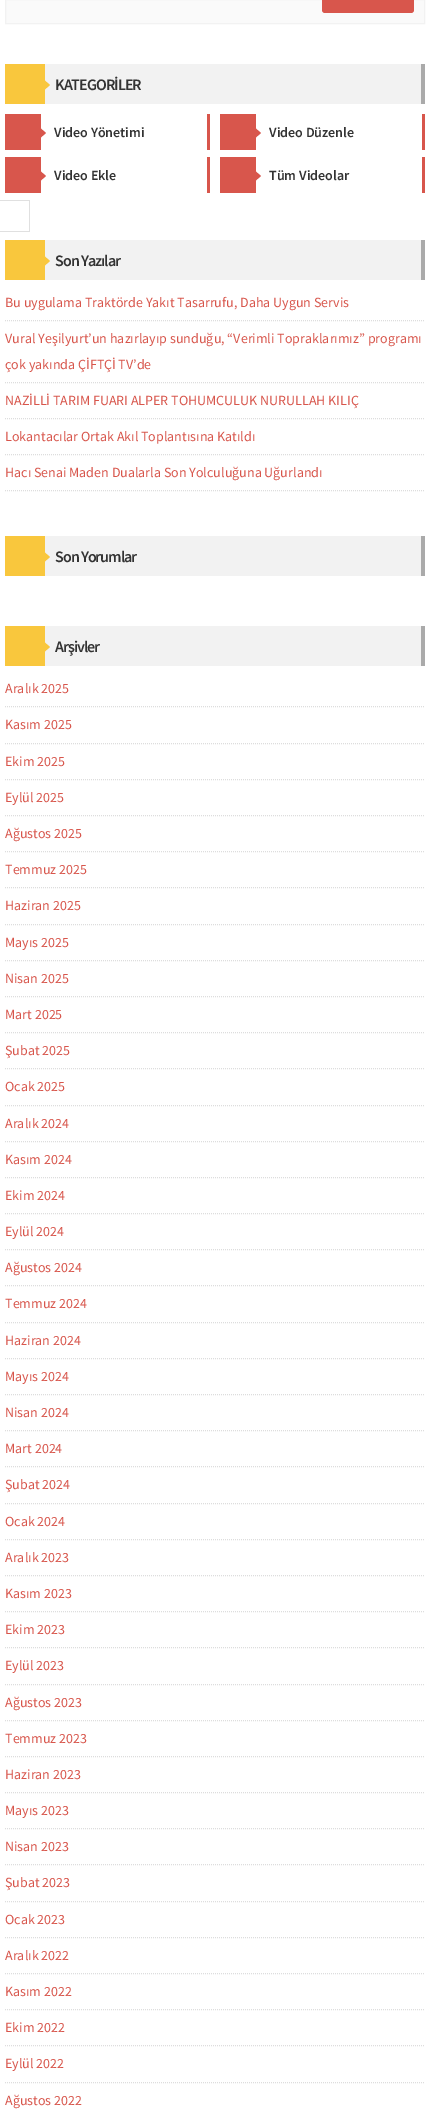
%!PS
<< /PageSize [430 2111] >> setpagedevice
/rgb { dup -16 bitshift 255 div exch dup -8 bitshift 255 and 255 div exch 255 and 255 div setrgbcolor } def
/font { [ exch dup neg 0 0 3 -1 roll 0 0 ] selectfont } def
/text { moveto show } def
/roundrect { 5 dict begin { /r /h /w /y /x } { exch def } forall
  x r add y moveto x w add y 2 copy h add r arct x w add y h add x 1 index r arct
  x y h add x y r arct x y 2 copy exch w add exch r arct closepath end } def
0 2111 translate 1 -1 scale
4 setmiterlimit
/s1 { /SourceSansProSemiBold-SemiBold 14 font 16#333333 rgb } def
/s2 { /SourceSansPro-Regular 14 font 16#D8564C rgb } def
16#FFFFFF rgb
0 0 430 2111 rectfill
16#FAFAFA rgb
5.5 -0.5 moveto 424.5 -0.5 lineto 424.5 23.5 lineto 5.5 23.5 lineto closepath gsave fill grestore
16#F2F2F2 rgb
stroke
16#D8564C rgb
322 -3 92 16 3 roundrect fill
16#F2F2F2 rgb
45 64 376 40 rectfill
16#AAAAAA rgb
421 64 4 40 rectfill
16#F9C73D rgb
5 64 40 40 rectfill
43 91 moveto 43 79 lineto 50 85 lineto closepath fill
/SourceSansProSemiBold-SemiBold 16 font
16#333333 rgb
55 90 moveto -1 0 (KATEGORİLER) ashow
16#D8564C rgb
207 114 3 36 rectfill
5 114 36 36 rectfill
39 139 moveto 39 127 lineto 46 133 lineto closepath fill
s1
(Video Yönetimi) 54 137 text
16#D8564C rgb
422 114 3 36 rectfill
220 114 36 36 rectfill
254 139 moveto 254 127 lineto 261 133 lineto closepath fill
s1
(Video Düzenle) 269 137 text
16#D8564C rgb
207 157 3 36 rectfill
5 157 36 36 rectfill
39 182 moveto 39 170 lineto 46 176 lineto closepath fill
s1
(Video Ekle) 54 180 text
16#D8564C rgb
422 157 3 36 rectfill
220 157 36 36 rectfill
254 182 moveto 254 170 lineto 261 176 lineto closepath fill
s1
(Tüm Videolar) 269 180 text
16#F2F2F2 rgb
45 240 376 40 rectfill
16#AAAAAA rgb
421 240 4 40 rectfill
16#F9C73D rgb
5 240 40 40 rectfill
43 267 moveto 43 255 lineto 50 261 lineto closepath fill
/SourceSansProSemiBold-SemiBold 16 font
16#333333 rgb
55 266 moveto -1 0 (Son Yazılar) ashow
16#DDDDDD rgb
[1 1] 0 setdash
5 320.5 moveto 425 320.5 lineto stroke
s2
(Bu uygulama Traktörde Yakıt Tasarrufu, Daha Uygun Servis) 5 307 text
16#DDDDDD rgb
5 382.5 moveto 425 382.5 lineto stroke
s2
(Vural Yeşilyurt’un hazırlayıp sunduğu, “Verimli Topraklarımız” programı) 5 343 text
(çok yakında ÇİFTÇİ TV’de) 5 369 text
16#DDDDDD rgb
5 418.5 moveto 425 418.5 lineto stroke
s2
(NAZİLLİ TARIM FUARI ALPER TOHUMCULUK NURULLAH KILIÇ) 5 405 text
16#DDDDDD rgb
5 454.5 moveto 425 454.5 lineto stroke
s2
(Lokantacılar Ortak Akıl Toplantısına Katıldı) 5 441 text
16#DDDDDD rgb
5 490.5 moveto 425 490.5 lineto stroke
s2
(Hacı Senai Maden Dualarla Son Yolculuğuna Uğurlandı) 5 477 text
16#F2F2F2 rgb
45 536 376 40 rectfill
16#AAAAAA rgb
421 536 4 40 rectfill
16#F9C73D rgb
5 536 40 40 rectfill
43 563 moveto 43 551 lineto 50 557 lineto closepath fill
/SourceSansProSemiBold-SemiBold 16 font
16#333333 rgb
55 562 moveto -1 0 (Son Yorumlar) ashow
16#F2F2F2 rgb
45 626 376 40 rectfill
16#AAAAAA rgb
421 626 4 40 rectfill
16#F9C73D rgb
5 626 40 40 rectfill
43 653 moveto 43 641 lineto 50 647 lineto closepath fill
16#333333 rgb
55 652 moveto -1 0 (Arşivler) ashow
16#DDDDDD rgb
5 706.5 moveto 425 706.5 lineto stroke
s2
(Aralık 2025) 5 693 text
16#DDDDDD rgb
5 743.5 moveto 425 743.5 lineto stroke
s2
(Kasım 2025) 5 729 text
16#DDDDDD rgb
5 779.5 moveto 425 779.5 lineto stroke
s2
(Ekim 2025) 5 766 text
16#DDDDDD rgb
5 815.5 moveto 425 815.5 lineto stroke
s2
(Eylül 2025) 5 802 text
16#DDDDDD rgb
5 851.5 moveto 425 851.5 lineto stroke
s2
(Ağustos 2025) 5 838 text
16#DDDDDD rgb
5 887.5 moveto 425 887.5 lineto stroke
s2
(Temmuz 2025) 5 874 text
16#DDDDDD rgb
5 924.5 moveto 425 924.5 lineto stroke
s2
(Haziran 2025) 5 910 text
16#DDDDDD rgb
5 960.5 moveto 425 960.5 lineto stroke
s2
(Mayıs 2025) 5 947 text
16#DDDDDD rgb
5 996.5 moveto 425 996.5 lineto stroke
s2
(Nisan 2025) 5 983 text
16#DDDDDD rgb
5 1032.5 moveto 425 1032.5 lineto stroke
s2
(Mart 2025) 5 1019 text
16#DDDDDD rgb
5 1068.5 moveto 425 1068.5 lineto stroke
s2
(Şubat 2025) 5 1055 text
16#DDDDDD rgb
5 1105.5 moveto 425 1105.5 lineto stroke
s2
(Ocak 2025) 5 1091 text
16#DDDDDD rgb
5 1141.5 moveto 425 1141.5 lineto stroke
s2
(Aralık 2024) 5 1128 text
16#DDDDDD rgb
5 1177.5 moveto 425 1177.5 lineto stroke
s2
(Kasım 2024) 5 1164 text
16#DDDDDD rgb
5 1213.5 moveto 425 1213.5 lineto stroke
s2
(Ekim 2024) 5 1200 text
16#DDDDDD rgb
5 1249.5 moveto 425 1249.5 lineto stroke
s2
(Eylül 2024) 5 1236 text
16#DDDDDD rgb
5 1285.5 moveto 425 1285.5 lineto stroke
s2
(Ağustos 2024) 5 1272 text
16#DDDDDD rgb
5 1322.5 moveto 425 1322.5 lineto stroke
s2
(Temmuz 2024) 5 1308 text
16#DDDDDD rgb
5 1358.5 moveto 425 1358.5 lineto stroke
s2
(Haziran 2024) 5 1345 text
16#DDDDDD rgb
5 1394.5 moveto 425 1394.5 lineto stroke
s2
(Mayıs 2024) 5 1381 text
16#DDDDDD rgb
5 1430.5 moveto 425 1430.5 lineto stroke
s2
(Nisan 2024) 5 1417 text
16#DDDDDD rgb
5 1466.5 moveto 425 1466.5 lineto stroke
s2
(Mart 2024) 5 1453 text
16#DDDDDD rgb
5 1503.5 moveto 425 1503.5 lineto stroke
s2
(Şubat 2024) 5 1489 text
16#DDDDDD rgb
5 1539.5 moveto 425 1539.5 lineto stroke
s2
(Ocak 2024) 5 1526 text
16#DDDDDD rgb
5 1575.5 moveto 425 1575.5 lineto stroke
s2
(Aralık 2023) 5 1562 text
16#DDDDDD rgb
5 1611.5 moveto 425 1611.5 lineto stroke
s2
(Kasım 2023) 5 1598 text
16#DDDDDD rgb
5 1647.5 moveto 425 1647.5 lineto stroke
s2
(Ekim 2023) 5 1634 text
16#DDDDDD rgb
5 1684.5 moveto 425 1684.5 lineto stroke
s2
(Eylül 2023) 5 1670 text
16#DDDDDD rgb
5 1720.5 moveto 425 1720.5 lineto stroke
s2
(Ağustos 2023) 5 1707 text
16#DDDDDD rgb
5 1756.5 moveto 425 1756.5 lineto stroke
s2
(Temmuz 2023) 5 1743 text
16#DDDDDD rgb
5 1792.5 moveto 425 1792.5 lineto stroke
s2
(Haziran 2023) 5 1779 text
16#DDDDDD rgb
5 1828.5 moveto 425 1828.5 lineto stroke
s2
(Mayıs 2023) 5 1815 text
16#DDDDDD rgb
5 1864.5 moveto 425 1864.5 lineto stroke
s2
(Nisan 2023) 5 1851 text
16#DDDDDD rgb
5 1901.5 moveto 425 1901.5 lineto stroke
s2
(Şubat 2023) 5 1887 text
16#DDDDDD rgb
5 1937.5 moveto 425 1937.5 lineto stroke
s2
(Ocak 2023) 5 1924 text
16#DDDDDD rgb
5 1973.5 moveto 425 1973.5 lineto stroke
s2
(Aralık 2022) 5 1960 text
16#DDDDDD rgb
5 2009.5 moveto 425 2009.5 lineto stroke
s2
(Kasım 2022) 5 1996 text
16#DDDDDD rgb
5 2045.5 moveto 425 2045.5 lineto stroke
s2
(Ekim 2022) 5 2032 text
16#DDDDDD rgb
5 2082.5 moveto 425 2082.5 lineto stroke
s2
(Eylül 2022) 5 2068 text
(Ağustos 2022) 5 2105 text
16#E0E0E0 rgb
0 200 30 1 rectfill
29 200 1 32 rectfill
0 231 30 1 rectfill
showpage
